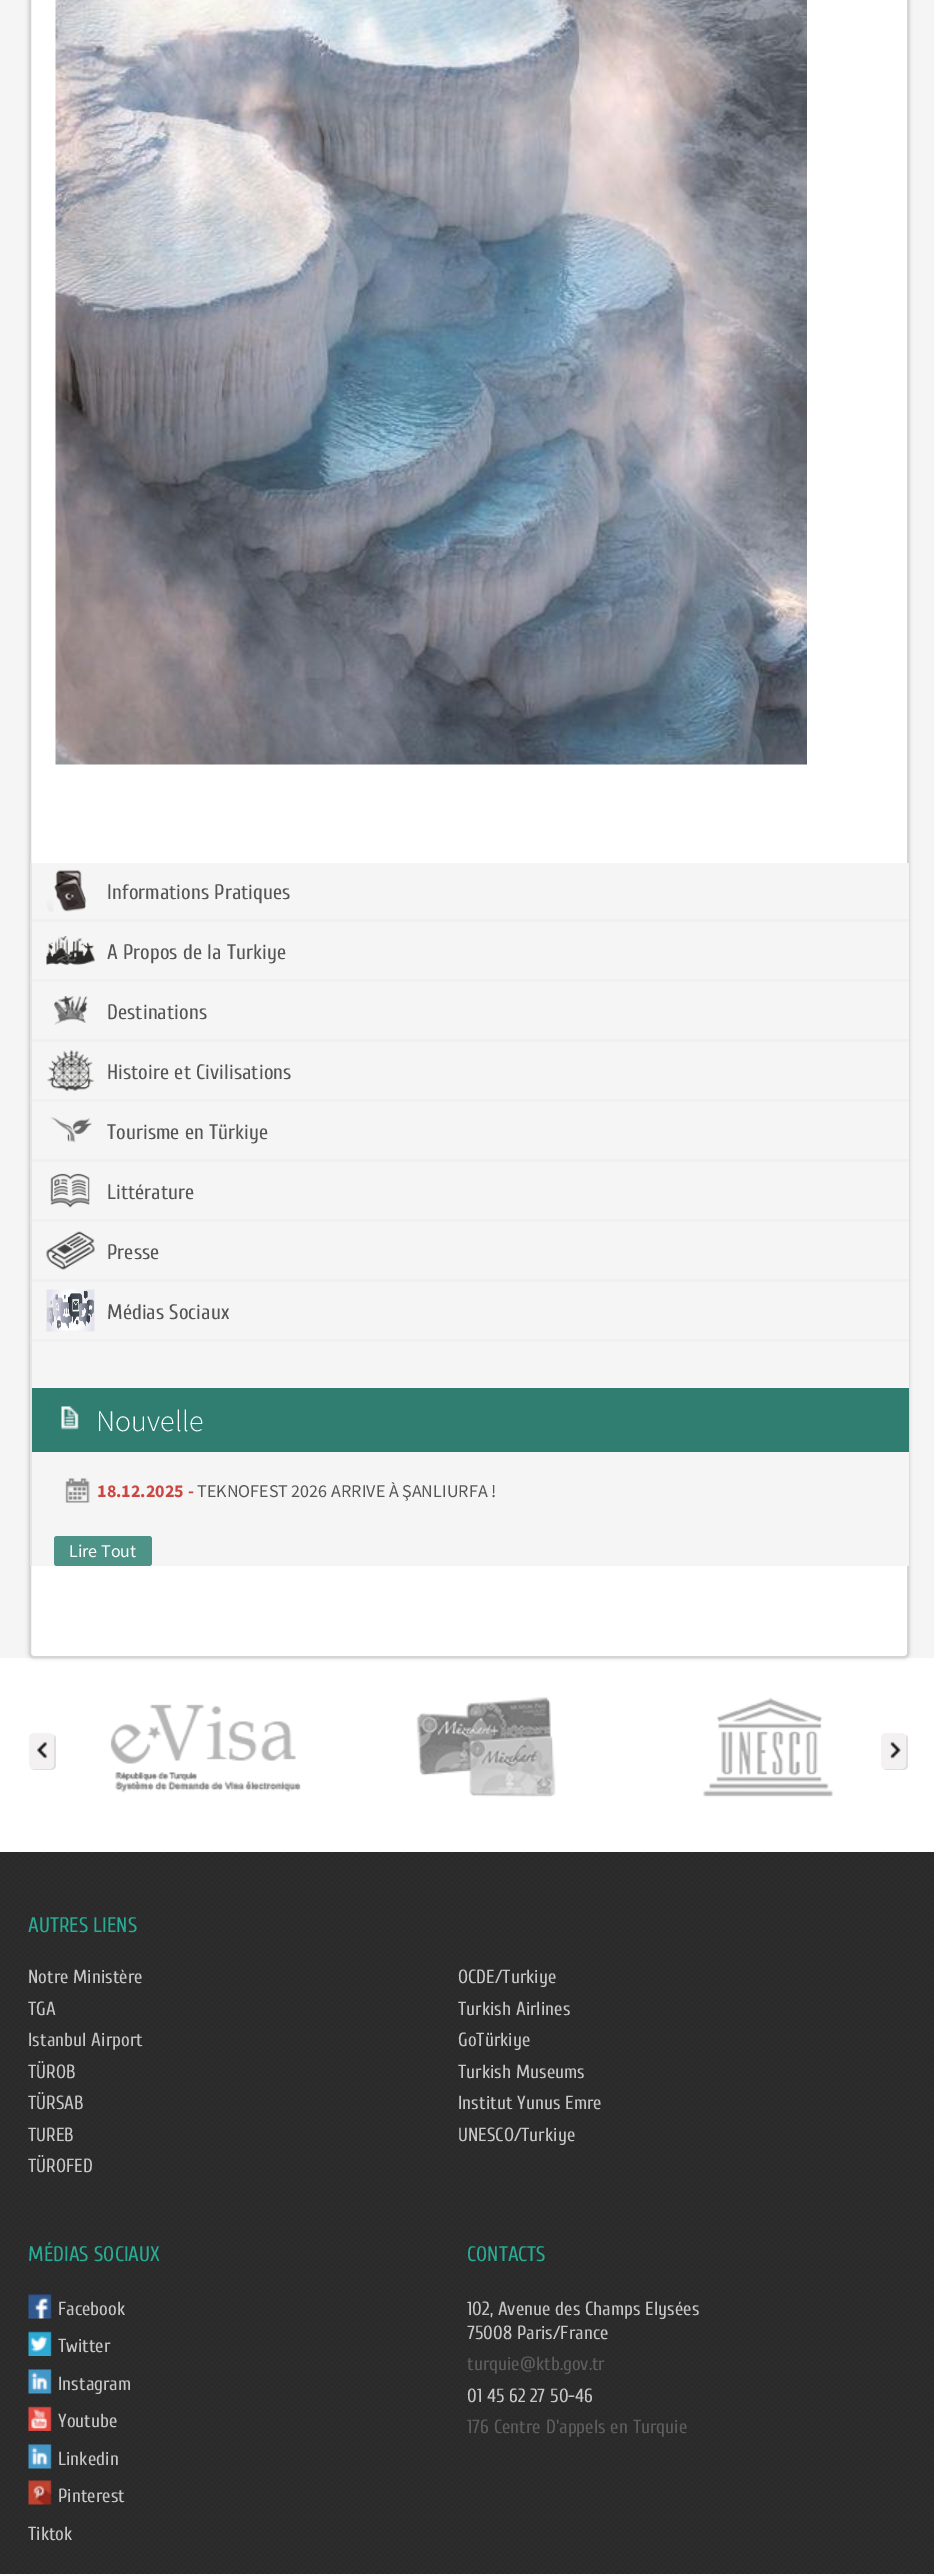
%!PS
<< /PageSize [934 2574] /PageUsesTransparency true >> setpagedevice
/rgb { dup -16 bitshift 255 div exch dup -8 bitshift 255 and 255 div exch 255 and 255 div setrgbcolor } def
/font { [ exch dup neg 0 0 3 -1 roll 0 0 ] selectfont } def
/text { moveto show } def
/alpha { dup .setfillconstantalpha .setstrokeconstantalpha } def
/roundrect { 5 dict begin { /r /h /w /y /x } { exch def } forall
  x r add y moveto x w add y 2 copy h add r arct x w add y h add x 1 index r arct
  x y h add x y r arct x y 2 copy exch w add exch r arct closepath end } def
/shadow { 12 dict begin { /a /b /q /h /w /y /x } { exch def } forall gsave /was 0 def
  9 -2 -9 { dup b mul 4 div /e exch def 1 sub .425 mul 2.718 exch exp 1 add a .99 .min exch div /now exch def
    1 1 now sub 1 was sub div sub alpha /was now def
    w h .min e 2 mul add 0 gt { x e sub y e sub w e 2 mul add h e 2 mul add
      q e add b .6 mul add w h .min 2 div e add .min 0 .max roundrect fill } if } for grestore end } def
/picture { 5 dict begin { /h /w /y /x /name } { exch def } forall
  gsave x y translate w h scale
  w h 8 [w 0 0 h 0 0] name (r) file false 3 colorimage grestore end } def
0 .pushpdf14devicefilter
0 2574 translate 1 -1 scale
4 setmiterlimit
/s1 { /Cuprum-Regular 21 font 16#565656 rgb } def
/s2 { /SourceSansPro-Light 30 font 16#FFFFFF rgb } def
/s3 { /SourceSansPro-Bold 18 font 16#CC4742 rgb } def
/s4 { /SourceSansPro-Regular 18 font 16#565656 rgb } def
/s5 { /SourceSansPro-Regular 18 font 16#FFFFFF rgb } def
/s6 { /Cuprum-Regular 21 font 16#28AA94 rgb } def
/s7 { /Cuprum-Regular 19.1 font 16#C6C6C6 rgb } def
/s8 { /Cuprum-Regular 19.1 font 16#5D5D5D rgb } def
16#FFFFFF rgb
0 0 934 2574 rectfill
16#F5F5F5 rgb
0 0 934 1658 rectfill
16#000000 rgb
29 -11 880 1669 5 2 0.2 shadow
16#FFFFFF rgb
30 -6 878 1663 4 roundrect gsave fill grestore
16#D5D5D5 rgb
2 setlinewidth
stroke
(pic1.raw) 55 0 752 765 picture
16#F5F5F5 rgb
32 863 877 703 rectfill
16#E5E5E5 rgb
30 863 2 703 rectfill
0.54 alpha
16#ECECEC rgb
31 919 878 3 rectfill
1 alpha
(pic2.raw) 47 870 39 42 picture
s1
(Informations Pratiques) 107 899 text
0.54 alpha
16#ECECEC rgb
31 979 878 3 rectfill
1 alpha
(pic3.raw) 46 936 49 29 picture
s1
(A Propos de la Turkiye) 107 959 text
0.54 alpha
16#ECECEC rgb
31 1039 878 3 rectfill
1 alpha
(pic4.raw) 54 996 34 29 picture
s1
(Destinations) 107 1019 text
0.54 alpha
16#ECECEC rgb
31 1099 878 3 rectfill
1 alpha
(pic5.raw) 47 1049 48 43 picture
s1
(Histoire et Civilisations) 107 1079 text
0.54 alpha
16#ECECEC rgb
31 1159 878 3 rectfill
1 alpha
(pic6.raw) 50 1117 42 26 picture
s1
(Tourisme en Türkiye) 107 1139 text
0.54 alpha
16#ECECEC rgb
31 1219 878 3 rectfill
1 alpha
(pic7.raw) 50 1173 40 35 picture
s1
(Littérature) 107 1199 text
0.54 alpha
16#ECECEC rgb
31 1279 878 3 rectfill
1 alpha
(pic8.raw) 46 1231 49 39 picture
s1
(Presse) 107 1259 text
0.54 alpha
16#ECECEC rgb
31 1339 878 3 rectfill
1 alpha
(pic9.raw) 46 1289 49 43 picture
s1
(Médias Sociaux) 107 1319 text
16#307D71 rgb
32 1388 877 64 rectfill
(pic10.raw) 61 1406 18 24 picture
s2
(Nouvelle) 96 1431 text
(pic11.raw) 65 1478 25 25 picture
s3
(18.12.2025 -) 97 1497 text
s4
(TEKNOFEST 2026 ARRIVE À ŞANLIURFA !) 197 1497 text
16#4E9387 rgb
54 1536 98 30 3 roundrect fill
s5
(Lire Tout) 69 1557 text
(pic12.raw) 110 1704 191 89 picture
(pic13.raw) 416 1697 140 100 picture
(pic14.raw) 703 1697 130 100 picture
16#E0E0E0 rgb
31 1768 moveto 32 1769 33.5 1770 35 1770 curveto 51 1770 lineto 54 1770 56 1768 56 1765 curveto 56 1739 lineto 56 1737 55 1735.5 53.5 1734.5 curveto 53.5 1735.5 54 1736 54 1737 curveto 54 1764 lineto 54 1766.5 52 1768.5 49.5 1768.5 curveto 33 1768.5 lineto closepath fill
16#F3F1F1 rgb
29 1733 25 36 5 roundrect fill
(pic15.raw) 37 1742 11 17 picture
16#E0E0E0 rgb
883 1768 moveto 884 1769 885.5 1770 887 1770 curveto 903 1770 lineto 906 1770 908 1768 908 1765 curveto 908 1739 lineto 908 1737 907 1735.5 905.5 1734.5 curveto 905.5 1735.5 906 1736 906 1737 curveto 906 1764 lineto 906 1766.5 904 1768.5 901.5 1768.5 curveto 885 1768.5 lineto closepath fill
16#F3F1F1 rgb
881 1733 25 36 5 roundrect fill
(pic16.raw) 889 1742 12 17 picture
(pic17.raw) 0 1852 934 722 picture
s6
(AUTRES LIENS) 28 1932 text
s7
(Notre Ministère) 28 1983 text
(OCDE/Turkiye) 458 1983 text
(TGA) 28 2015 text
(Turkish Airlines) 458 2015 text
(Istanbul Airport) 28 2046 text
(GoTürkiye) 458 2046 text
(TÜROB) 28 2078 text
(Turkish Museums) 458 2078 text
(TÜRSAB) 28 2109 text
(Institut Yunus Emre) 458 2109 text
(TUREB) 28 2141 text
(UNESCO/Turkiye) 458 2141 text
(TÜROFED) 28 2172 text
s6
(MÉDIAS SOCIAUX) 28 2261 text
(pic18.raw) 28 2294 24 25 picture
s7
(Facebook) 58 2315 text
(pic19.raw) 28 2331 24 25 picture
(Twitter) 58 2352 text
(pic20.raw) 28 2369 24 25 picture
(Instagram) 58 2390 text
(pic21.raw) 28 2406 24 25 picture
(Youtube) 58 2427 text
(pic22.raw) 28 2444 24 25 picture
(Linkedin) 58 2465 text
(pic23.raw) 28 2480 24 25 picture
(Pinterest) 58 2502 text
(Tiktok) 28 2540 text
s6
(CONTACTS) 467 2261 text
s7
(102, Avenue des Champs Elysées) 467 2315 text
(75008 Paris/France) 467 2339 text
s8
(turquie@ktb.gov.tr) 467 2370 text
s7
(01 45 62 27 50-46) 467 2402 text
s8
(176 Centre D'appels en Turquie) 467 2433 text
.poppdf14devicefilter showpage
